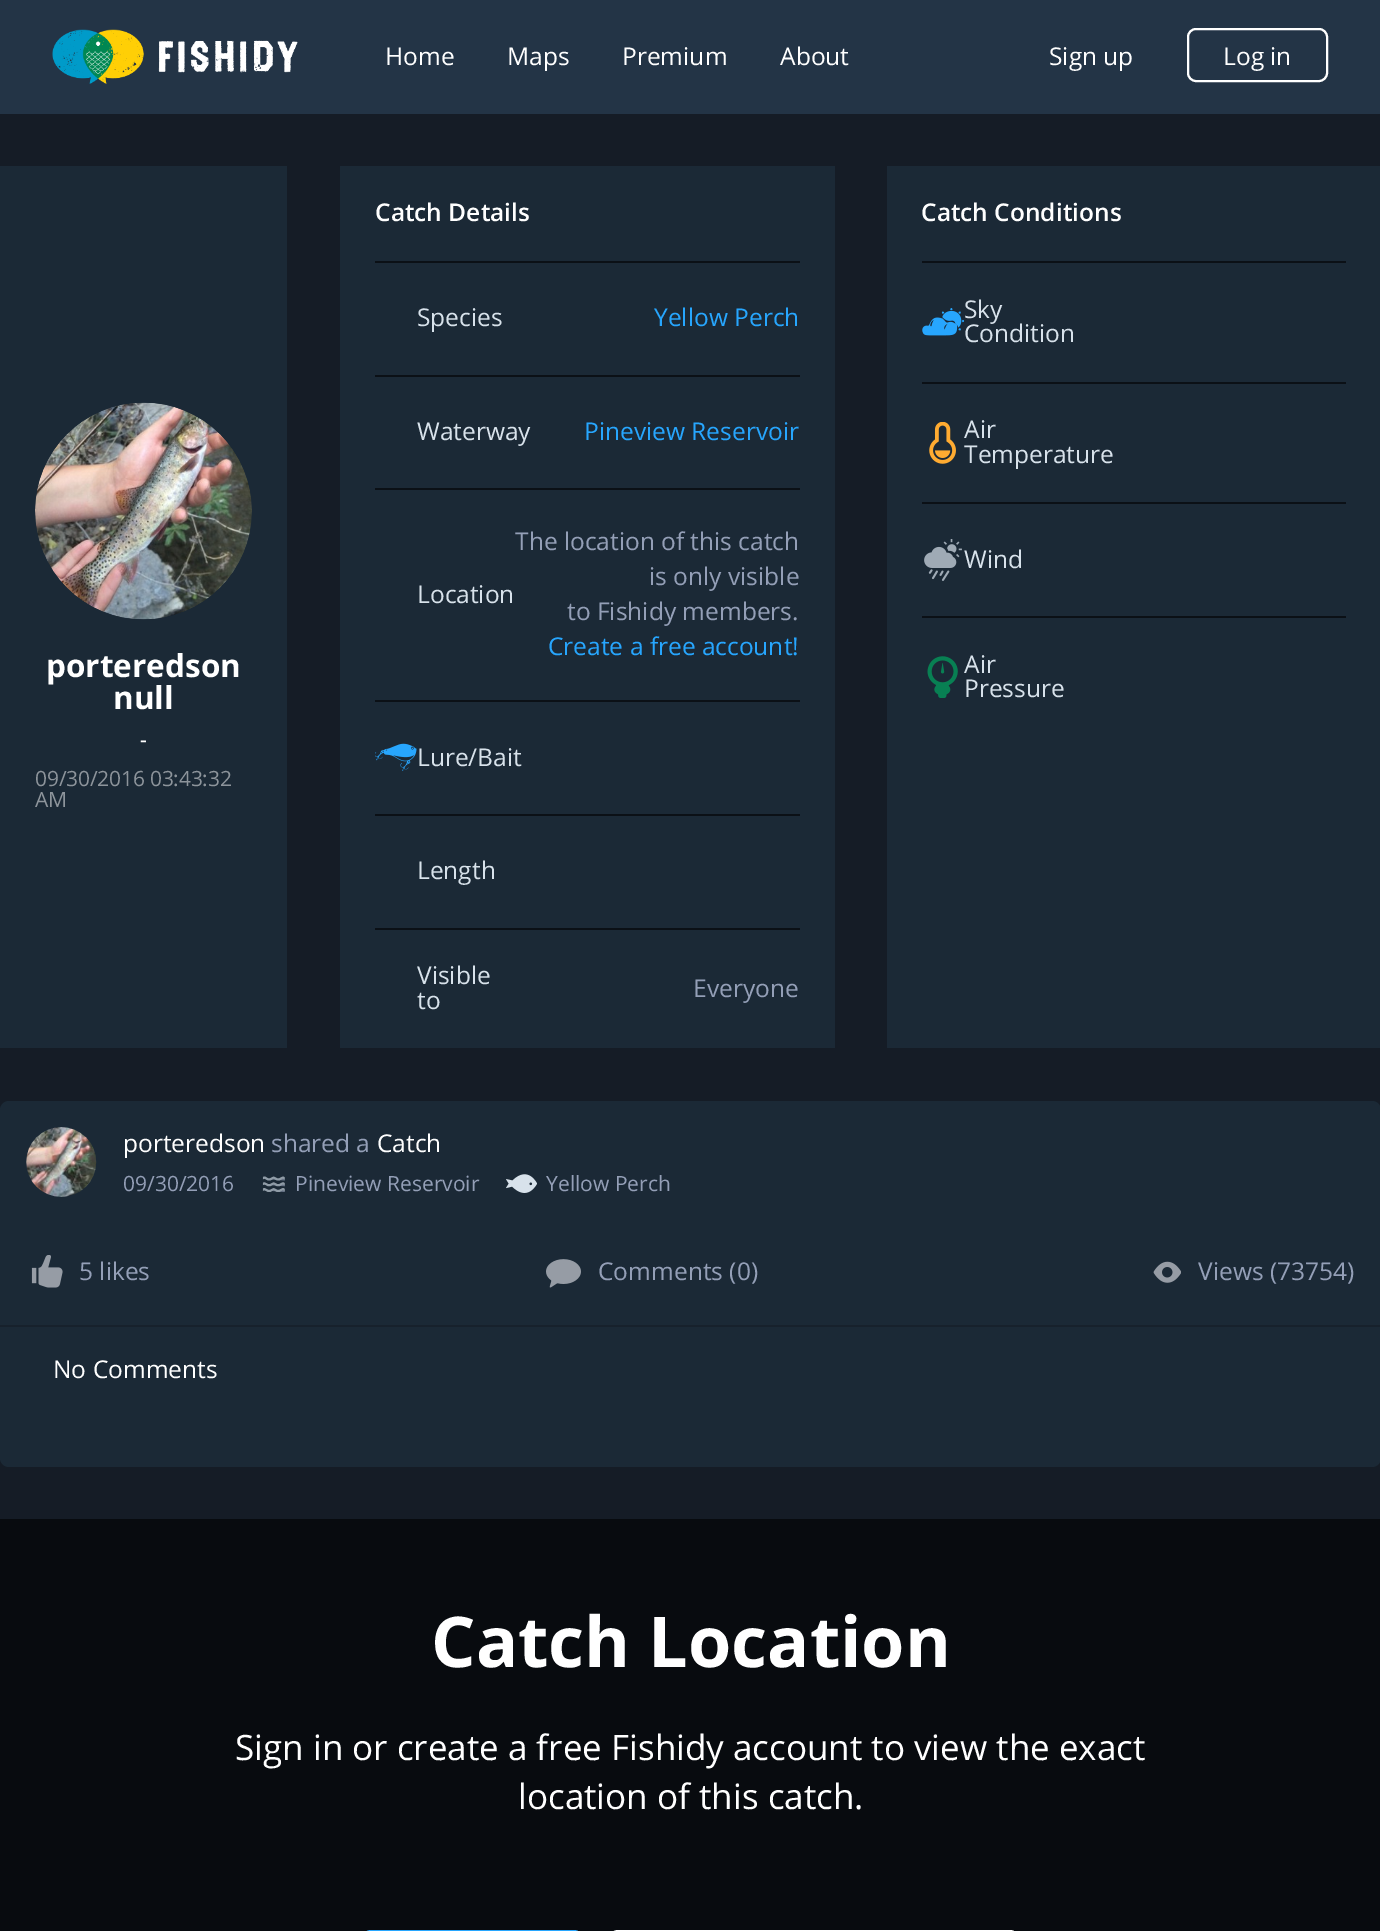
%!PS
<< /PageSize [1380 1931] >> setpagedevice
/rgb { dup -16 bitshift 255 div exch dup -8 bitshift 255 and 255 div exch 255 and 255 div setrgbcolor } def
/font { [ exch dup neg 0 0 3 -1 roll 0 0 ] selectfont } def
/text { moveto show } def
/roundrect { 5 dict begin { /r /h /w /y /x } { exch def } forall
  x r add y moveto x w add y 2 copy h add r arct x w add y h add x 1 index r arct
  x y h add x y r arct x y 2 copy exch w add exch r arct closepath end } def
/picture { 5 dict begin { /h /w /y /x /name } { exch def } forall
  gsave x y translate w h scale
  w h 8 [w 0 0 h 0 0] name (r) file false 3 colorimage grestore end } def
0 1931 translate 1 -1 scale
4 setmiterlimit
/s1 { /OpenSans-Regular 24.5 font 16#FFFFFF rgb } def
/s2 { /OpenSans-SemiBold 24.5 font 16#FFFFFF rgb } def
/s3 { /OpenSans-Regular 24.5 font 16#D8E2EB rgb } def
/s4 { /OpenSans-Regular 24.5 font 16#27A6FE rgb } def
/s5 { /OpenSans-Regular 24.5 font 16#949FB7 rgb } def
/s6 { /OpenSans-Bold 31.5 font 16#FFFFFF rgb } def
/s7 { /OpenSans-Regular 21 font 16#FFFFFF rgb } def
/s8 { /OpenSans-Regular 21 font 16#949FB7 rgb } def
/s9 { /OpenSans-Bold 70 font 16#FFFFFF rgb } def
/s10 { /OpenSans-Regular 35 font 16#FFFFFF rgb } def
16#151C26 rgb
0 0 1380 1931 rectfill
16#233446 rgb
0 0 1380 114 rectfill
(pic1.raw) 52 29 246 55 picture
s1
(Home) 385 65 text
(Maps) 507 65 text
(Premium) 622 65 text
(About) 780 65 text
(Sign up) 1049 65 text
2 setlinewidth
1188 29 139 52 8 roundrect stroke
(Log in) 1223 65 text
16#1B2936 rgb
340 166 495 882 rectfill
s2
(Catch Details) 375 221 text
16#0B1016 rgb
375 261 425 2 rectfill
s3
(Species) 417 326 text
s4
(Yellow Perch) 654 326 text
16#0B1016 rgb
375 375 425 2 rectfill
s3
(Waterway) 417 440 text
s4
(Pineview Reservoir) 584 440 text
16#0B1016 rgb
375 488 425 2 rectfill
s3
(Location) 417 603 text
s5
(The location of this catch) 515 550 text
(is only visible) 649 585 text
(to Fishidy members.) 567 620 text
s4
(Create a free account!) 548 655 text
16#0B1016 rgb
375 700 425 2 rectfill
(pic2.raw) 375 743 42 28 picture
s3
(Lure/Bait) 417 766 text
16#0B1016 rgb
375 814 425 2 rectfill
s3
(Length) 417 879 text
16#0B1016 rgb
375 928 425 2 rectfill
s3
(Visible) 417 984 text
(to) 417 1009 text
s5
(Everyone) 693 997 text
16#1B2936 rgb
887 166 493 882 rectfill
s2
(Catch Conditions) 921 221 text
16#0B1016 rgb
922 261 424 2 rectfill
(pic3.raw) 922 308 42 28 picture
s3
(Sky) 964 318 text
(Condition) 964 342 text
16#0B1016 rgb
922 382 424 2 rectfill
(pic4.raw) 929 422 27 42 picture
s3
(Air) 964 438 text
(Temperature) 964 463 text
16#0B1016 rgb
922 502 424 2 rectfill
(pic5.raw) 924 539 38 42 picture
s3
(Wind) 964 568 text
16#0B1016 rgb
922 616 424 2 rectfill
(pic6.raw) 927 656 31 42 picture
s3
(Air) 964 673 text
(Pressure) 964 697 text
16#1B2936 rgb
0 166 287 882 rectfill
(pic7.raw) 35 402 217 218 picture
s6
(porteredson) 46 677 text
(null) 113 709 text
s7
(-) 140 747 text
16#8D949B rgb
35 786 moveto -0.2 0 (09/30/2016 03:43:32) ashow
35 807 moveto -0.2 0 (AM) ashow
16#1B2936 rgb
0 1101 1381 366 9 roundrect fill
(pic8.raw) 26 1127 71 70 picture
s1
(porteredson) 123 1152 text
s5
(shared a) 271 1152 text
s1
(Catch) 377 1152 text
s8
(09/30/2016) 123 1191 text
(pic9.raw) 262 1176 23 16 picture
(Pineview Reservoir) 295 1191 text
(pic10.raw) 506 1174 31 19 picture
(Yellow Perch) 546 1191 text
16#17212C rgb
0 1325 1380 2 rectfill
(pic11.raw) 31 1255 32 33 picture
s5
(5 likes) 79 1280 text
(pic12.raw) 546 1259 35 29 picture
(Comments \(0\)) 598 1280 text
(pic13.raw) 1153 1261 28 22 picture
(Views \(73754\)) 1198 1280 text
s1
(No Comments) 53 1378 text
16#080B0F rgb
0 1519 1380 412 rectfill
s9
(Catch Location) 431 1667 text
s10
(Sign in or create a free Fishidy account to view the exact) 235 1760 text
(location of this catch.) 518 1809 text
16#27A6FE rgb
4 setlinewidth
364 1932 217 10 7 roundrect stroke
16#FFFFFF rgb
611 1932 406 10 7 roundrect stroke
showpage
